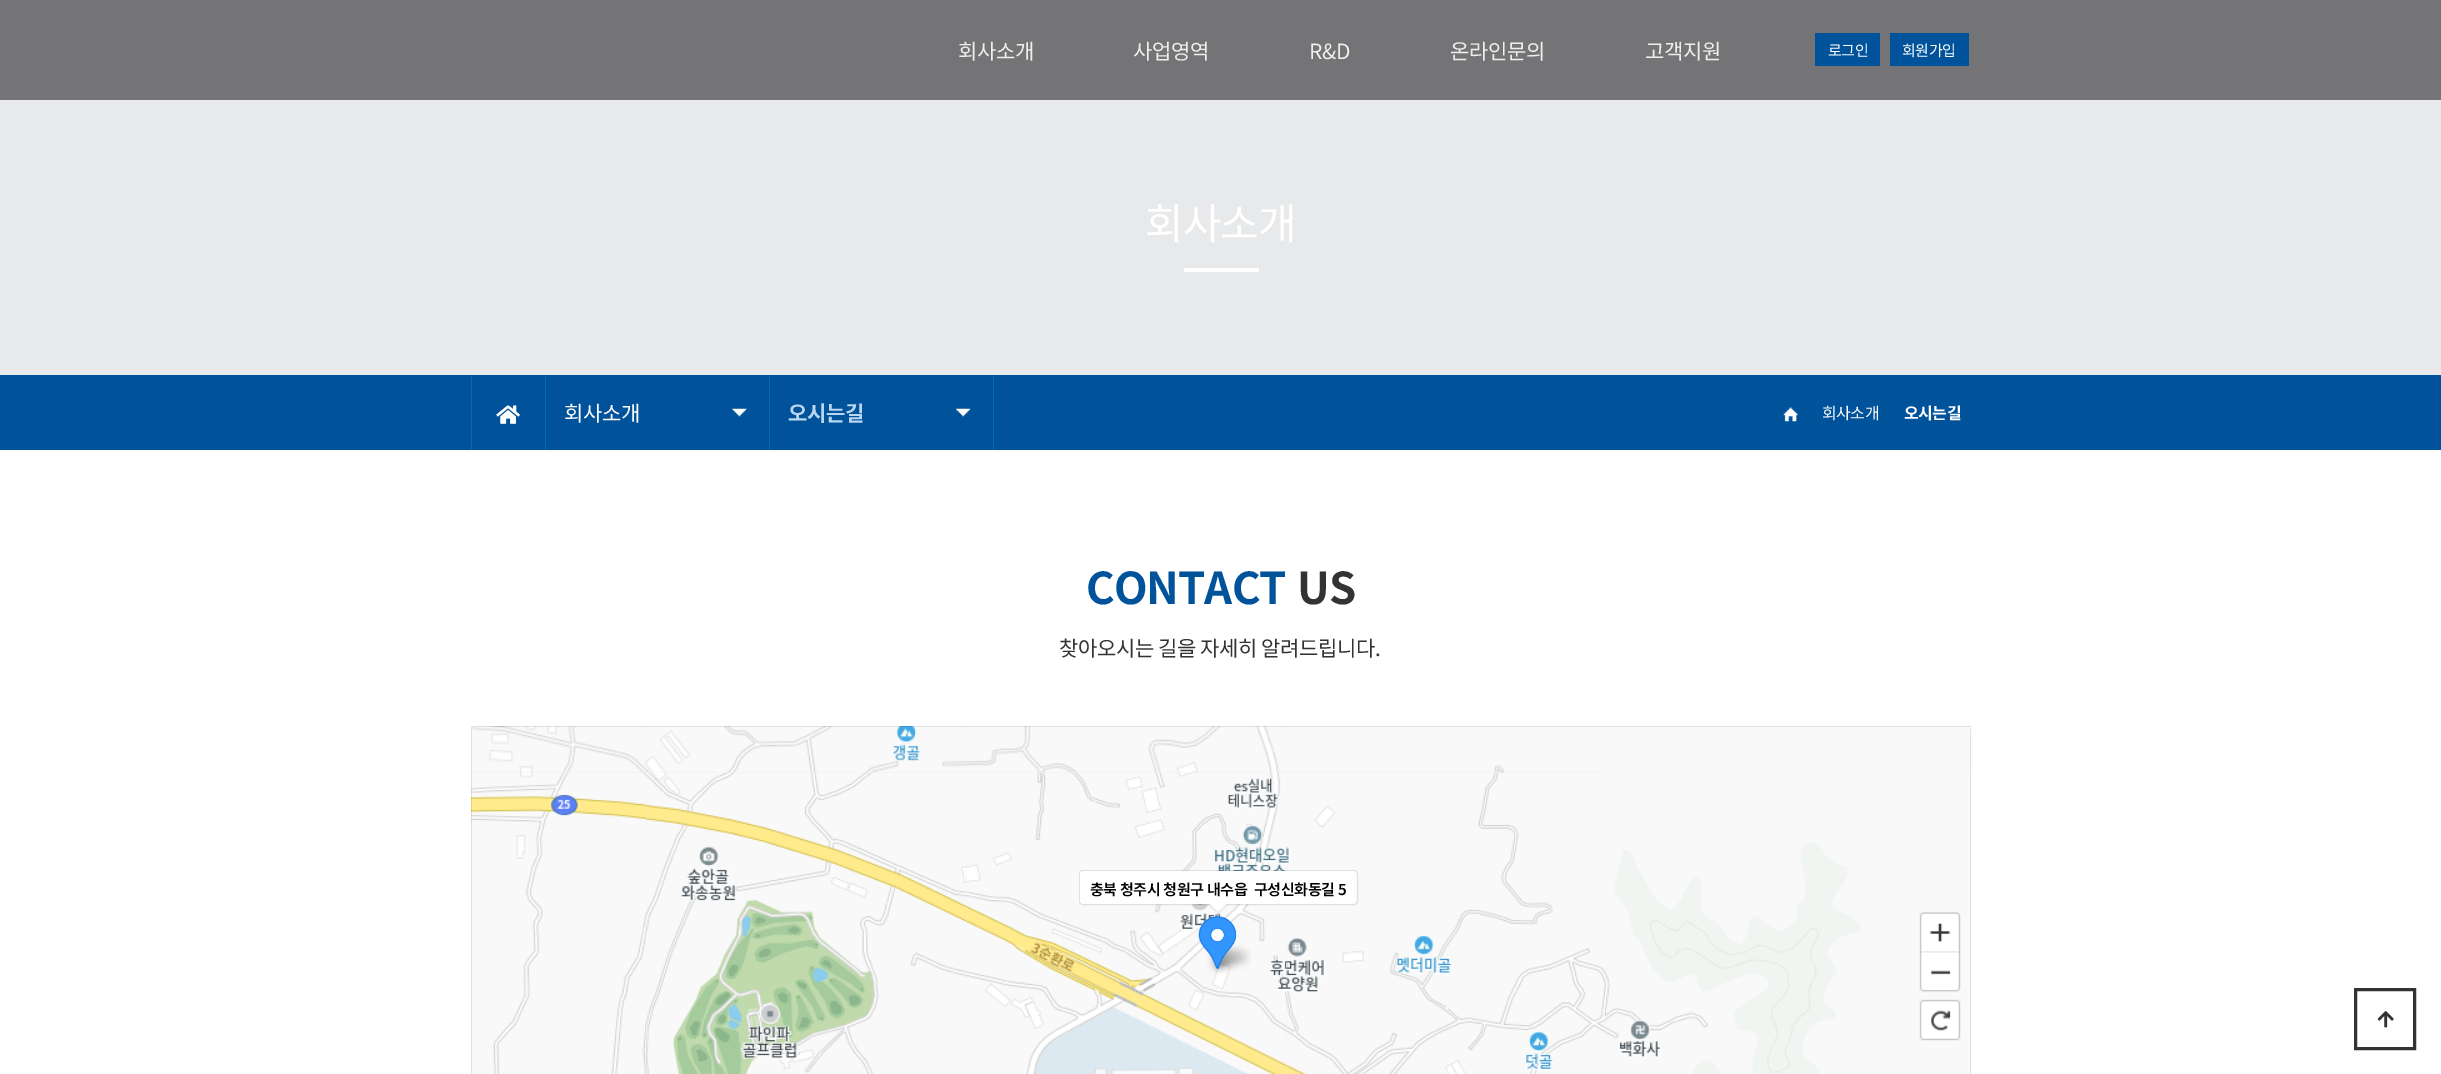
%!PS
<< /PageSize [2441 1074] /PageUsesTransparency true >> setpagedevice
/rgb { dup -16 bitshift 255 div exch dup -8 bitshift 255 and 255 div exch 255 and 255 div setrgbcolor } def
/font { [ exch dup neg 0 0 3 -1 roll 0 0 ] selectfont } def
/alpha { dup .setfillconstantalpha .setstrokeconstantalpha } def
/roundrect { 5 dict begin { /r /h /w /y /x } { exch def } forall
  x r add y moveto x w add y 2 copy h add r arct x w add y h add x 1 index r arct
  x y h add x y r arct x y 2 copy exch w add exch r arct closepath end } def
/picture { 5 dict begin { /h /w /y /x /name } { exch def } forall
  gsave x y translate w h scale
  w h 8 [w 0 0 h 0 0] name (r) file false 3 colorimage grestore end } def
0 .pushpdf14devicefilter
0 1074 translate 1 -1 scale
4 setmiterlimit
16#FFFFFF rgb
0 0 2441 1074 rectfill
16#747476 rgb
0 0 2441 100 rectfill
/NotoSansKR-Regular 21 font
16#EEEEEE rgb
958 59 moveto -0.35 0 (회사소개) ashow
1133 59 moveto -0.35 0 (사업영역) ashow
1309 59 moveto -0.35 0 (R&D) ashow
1450 59 moveto -0.35 0 (온라인문의) ashow
1645 59 moveto -0.35 0 (고객지원) ashow
16#00529B rgb
1815 33 65 33 rectfill
/NotoSansKR-Regular 15 font
16#FFFFFF rgb
1828 56 moveto -0.35 0 (로그인) ashow
16#00529B rgb
1890 33 79 33 rectfill
16#FFFFFF rgb
1902 56 moveto -0.35 0 (회원가입) ashow
16#E8E9EB rgb
0 100 2441 275 rectfill
16#00529B rgb
0 375 2441 75 rectfill
16#006EAD rgb
545 375 1 75 rectfill
471 375 1 75 rectfill
(pic1.raw) 496 405 24 19 picture
769 375 1 75 rectfill
(pic2.raw) 732 408 15 9 picture
/NotoSansKR-Regular 21 font
16#FFFFFF rgb
564 421 moveto -0.35 0 (회사소개) ashow
16#006EAD rgb
993 375 1 75 rectfill
(pic3.raw) 956 408 15 9 picture
/NotoSansKR-Bold 21 font
16#B9D7F1 rgb
788 421 moveto -0.35 0 (오시는길) ashow
/NotoSansKR-Regular 42 font
16#FFFFFF rgb
1145 239 moveto -1 0 (회사소개) ashow
1184 268 75 4 rectfill
(pic4.raw) 1783 407 15 15 picture
/NotoSansKR-Regular 16 font
1822 419 moveto -0.5 0 (회사소개) ashow
/NotoSansKR-Bold 16 font
1904 419 moveto -0.5 0 (오시는길) ashow
/NotoSansKR-Bold 43.75 font
16#00529B rgb
1086 604 moveto -1 0 (CONTACT) ashow
16#333333 rgb
1297 604 moveto -1 0 (US) ashow
/NotoSansKR-Regular 21 font
1059 656 moveto -0.4 0 (찾아오시는 길을 자세히 알려드립니다.) ashow
(pic5.raw) 471 726 1136 348 picture
(pic6.raw) 471 726 176 47 picture
(pic7.raw) 646 726 321 47 picture
(pic8.raw) 966 726 321 47 picture
(pic9.raw) 1286 726 320 47 picture
16#F9F9F9 rgb
1606 726 366 47 rectfill
0.1 alpha
16#000000 rgb
473 726 1498 1 rectfill
1 alpha
(pic10.raw) 471 773 175 301 picture
0.1 alpha
471 729 1 345 rectfill
1 alpha
(pic11.raw) 646 773 320 301 picture
(pic12.raw) 966 773 320 301 picture
(pic13.raw) 1286 773 320 301 picture
(pic14.raw) 1606 773 320 301 picture
16#F9F9F9 rgb
1926 773 44 301 rectfill
0.1 alpha
16#000000 rgb
1079.5 870.5 278 34 3.5 roundrect stroke
1 alpha
16#FFFFFF rgb
1080 871 276 33 4 roundrect fill
/NotoSansKR-SemiBold 15 font
16#000000 rgb
1090 895 moveto -0.35 0 (충북 청주시 청원구 내수읍) ashow
1254 895 moveto -0.35 0 (구성신화동길 5) ashow
(pic15.raw) 1208 904 20 10 picture
(pic16.raw) 1198 916 53 58 picture
16#E0E0E0 rgb
1970 729 1 345 rectfill
(pic17.raw) 1919 912 42 129 picture
(pic18.raw) 1929 923 22 19 picture
(pic19.raw) 1931 970 20 5 picture
(pic20.raw) 1931 1010 20 21 picture
16#333333 rgb
3 setlinewidth
2355.5 989.5 59 59 rectstroke
(pic21.raw) 2377 1011 17 17 picture
.poppdf14devicefilter showpage
